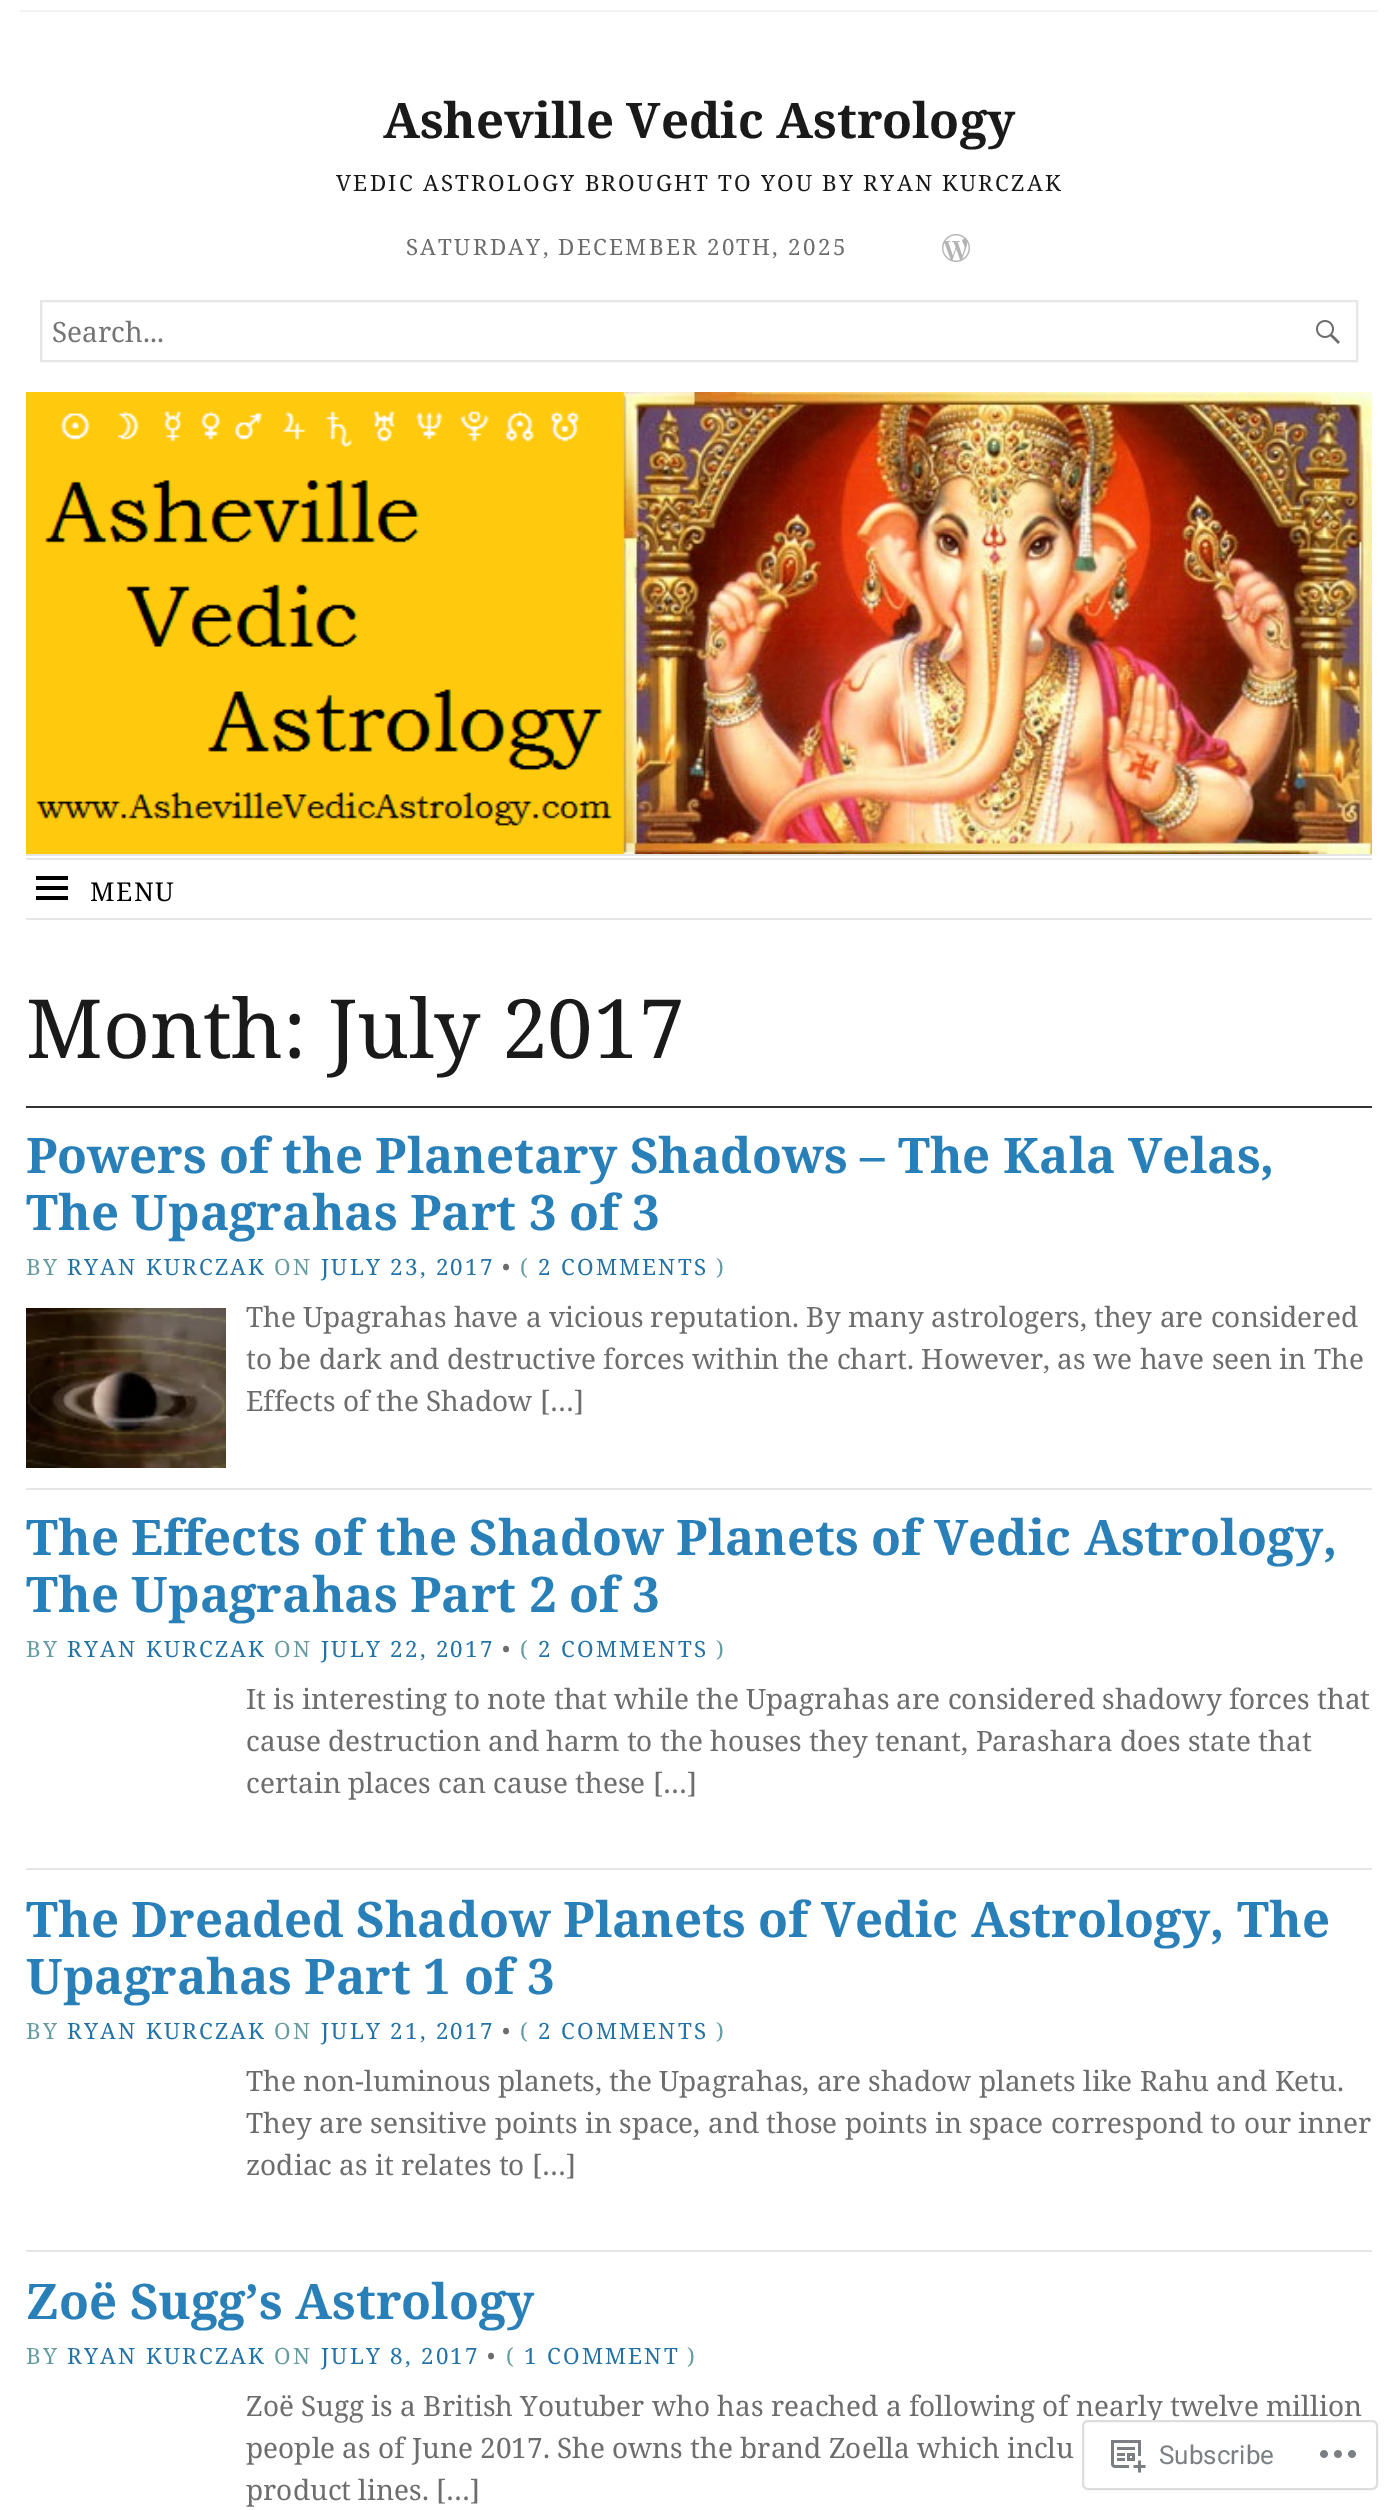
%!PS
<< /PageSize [1398 2510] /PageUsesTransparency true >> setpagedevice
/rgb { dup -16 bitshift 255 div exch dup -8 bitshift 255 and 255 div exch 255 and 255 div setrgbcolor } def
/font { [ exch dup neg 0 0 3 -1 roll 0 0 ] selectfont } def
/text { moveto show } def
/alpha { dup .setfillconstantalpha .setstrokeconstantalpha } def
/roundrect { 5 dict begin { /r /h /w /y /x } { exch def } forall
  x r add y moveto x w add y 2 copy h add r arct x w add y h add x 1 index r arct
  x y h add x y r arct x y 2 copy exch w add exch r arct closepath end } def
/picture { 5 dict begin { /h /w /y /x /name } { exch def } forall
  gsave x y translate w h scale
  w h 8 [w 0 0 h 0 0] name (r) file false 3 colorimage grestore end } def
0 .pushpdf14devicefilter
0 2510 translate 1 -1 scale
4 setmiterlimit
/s1 { /NotoSerif-Bold 49 font 16#1A1A1A rgb } def
/s2 { /NotoSerif-Regular 28 font 16#757575 rgb } def
/s3 { /NotoSerif-Regular 81.75 font 16#1A1A1A rgb } def
/s4 { /NotoSerif-Bold 49 font 16#2980B9 rgb } def
/s5 { /NotoSerif-Regular 28 font 16#6D6D6D rgb } def
/s6 { /Roboto-Regular 26 font 16#7B7F84 rgb } def
16#FFFFFF rgb
0 0 1398 2510 rectfill
16#F2F2F2 rgb
20 10 1358 2 rectfill
s1
(Asheville Vedic Astrology) 383 138 text
/NotoSerif-Regular 22.4 font
336 191 moveto 2.25 0 (VEDIC ASTROLOGY BROUGHT TO YOU BY RYAN KURCZAK) ashow
16#6D6D6D rgb
406 255 moveto 2.25 0 (SATURDAY, DECEMBER 20TH, 2025) ashow
(pic1.raw) 942 234 28 28 picture
16#E6E6E6 rgb
2 setlinewidth
41 301 1316 60 rectstroke
s2
(Search...) 52 342 text
(pic2.raw) 1316 320 24 24 picture
(pic3.raw) 26 392 1346 462 picture
16#E6E6E6 rgb
26 854 1346 2 rectfill
26 858 1346 2 rectfill
26 918 1346 2 rectfill
(pic4.raw) 36 876 32 24 picture
/NotoSerif-Regular 26 font
16#000000 rgb
90 901 moveto 1.5 0 (MENU) ashow
s3
(Month: July 2017) 26 1058 text
16#333333 rgb
26 1106 1346 2 rectfill
16#E6E6E6 rgb
26 1488 1346 2 rectfill
s4
(Powers of the Planetary Shadows – The Kala Velas,) 26 1173 text
(The Upagrahas Part 3 of 3) 26 1230 text
/NotoSerif-Regular 22.4 font
16#679DA1 rgb
26 1275 moveto 2.25 0 (BY) ashow
16#2473A7 rgb
67 1275 moveto 2.25 0 (RYAN KURCZAK) ashow
16#679DA1 rgb
274 1275 moveto 2.25 0 (ON) ashow
16#2473A7 rgb
321 1275 moveto 2.25 0 (JULY 23, 2017) ashow
16#6D6D6D rgb
502 1275 moveto 2.25 0 (•) ashow
16#679DA1 rgb
520 1275 moveto 2.25 0 (\() ashow
16#2473A7 rgb
538 1275 moveto 2.25 0 (2 COMMENTS) ashow
16#679DA1 rgb
716 1275 moveto 2.25 0 (\)) ashow
(pic5.raw) 26 1308 200 160 picture
s5
(The Upagrahas have a vicious reputation. By many astrologers, they are considered) 246 1327 text
(to be dark and destructive forces within the chart. However, as we have seen in The) 246 1369 text
(Effects of the Shadow […]) 246 1411 text
16#E6E6E6 rgb
26 1868 1346 2 rectfill
s4
(The Effects of the Shadow Planets of Vedic Astrology,) 26 1555 text
(The Upagrahas Part 2 of 3) 26 1612 text
/NotoSerif-Regular 22.4 font
16#679DA1 rgb
26 1657 moveto 2.25 0 (BY) ashow
16#2473A7 rgb
67 1657 moveto 2.25 0 (RYAN KURCZAK) ashow
16#679DA1 rgb
274 1657 moveto 2.25 0 (ON) ashow
16#2473A7 rgb
321 1657 moveto 2.25 0 (JULY 22, 2017) ashow
16#6D6D6D rgb
502 1657 moveto 2.25 0 (•) ashow
16#679DA1 rgb
520 1657 moveto 2.25 0 (\() ashow
16#2473A7 rgb
538 1657 moveto 2.25 0 (2 COMMENTS) ashow
16#679DA1 rgb
716 1657 moveto 2.25 0 (\)) ashow
s5
(It is interesting to note that while the Upagrahas are considered shadowy forces that) 246 1709 text
(cause destruction and harm to the houses they tenant, Parashara does state that) 246 1751 text
(certain places can cause these […]) 246 1793 text
16#E6E6E6 rgb
26 2250 1346 2 rectfill
s4
(The Dreaded Shadow Planets of Vedic Astrology, The) 26 1937 text
(Upagrahas Part 1 of 3) 26 1994 text
/NotoSerif-Regular 22.4 font
16#679DA1 rgb
26 2039 moveto 2.25 0 (BY) ashow
16#2473A7 rgb
67 2039 moveto 2.25 0 (RYAN KURCZAK) ashow
16#679DA1 rgb
274 2039 moveto 2.25 0 (ON) ashow
16#2473A7 rgb
321 2039 moveto 2.25 0 (JULY 21, 2017) ashow
16#6D6D6D rgb
502 2039 moveto 2.25 0 (•) ashow
16#679DA1 rgb
520 2039 moveto 2.25 0 (\() ashow
16#2473A7 rgb
538 2039 moveto 2.25 0 (2 COMMENTS) ashow
16#679DA1 rgb
716 2039 moveto 2.25 0 (\)) ashow
s5
(The non-luminous planets, the Upagrahas, are shadow planets like Rahu and Ketu.) 246 2091 text
(They are sensitive points in space, and those points in space correspond to our inner) 246 2133 text
(zodiac as it relates to […]) 246 2175 text
s4
(Zoë Sugg’s Astrology) 26 2319 text
/NotoSerif-Regular 22.4 font
16#679DA1 rgb
26 2364 moveto 2.25 0 (BY) ashow
16#2473A7 rgb
67 2364 moveto 2.25 0 (RYAN KURCZAK) ashow
16#679DA1 rgb
274 2364 moveto 2.25 0 (ON) ashow
16#2473A7 rgb
321 2364 moveto 2.25 0 (JULY 8, 2017) ashow
16#6D6D6D rgb
487 2364 moveto 2.25 0 (•) ashow
16#679DA1 rgb
506 2364 moveto 2.25 0 (\() ashow
16#2473A7 rgb
524 2364 moveto 2.25 0 (1 COMMENT) ashow
16#679DA1 rgb
687 2364 moveto 2.25 0 (\)) ashow
s5
(Zoë Sugg is a British Youtuber who has reached a following of nearly twelve million) 246 2416 text
(people as of June 2017. She owns the brand Zoella which inclu) 246 2458 text
(product lines. […]) 246 2500 text
0.98 alpha
16#FFFFFF rgb
1082 2420 296 70 6 roundrect fill
16#DCDCDE rgb
1083 2421 294 68 5 roundrect stroke
1 alpha
(pic6.raw) 1111 2440 35 33 picture
s6
(Subscribe) 1159 2464 text
(pic7.raw) 1320 2450 36 8 picture
.poppdf14devicefilter showpage
